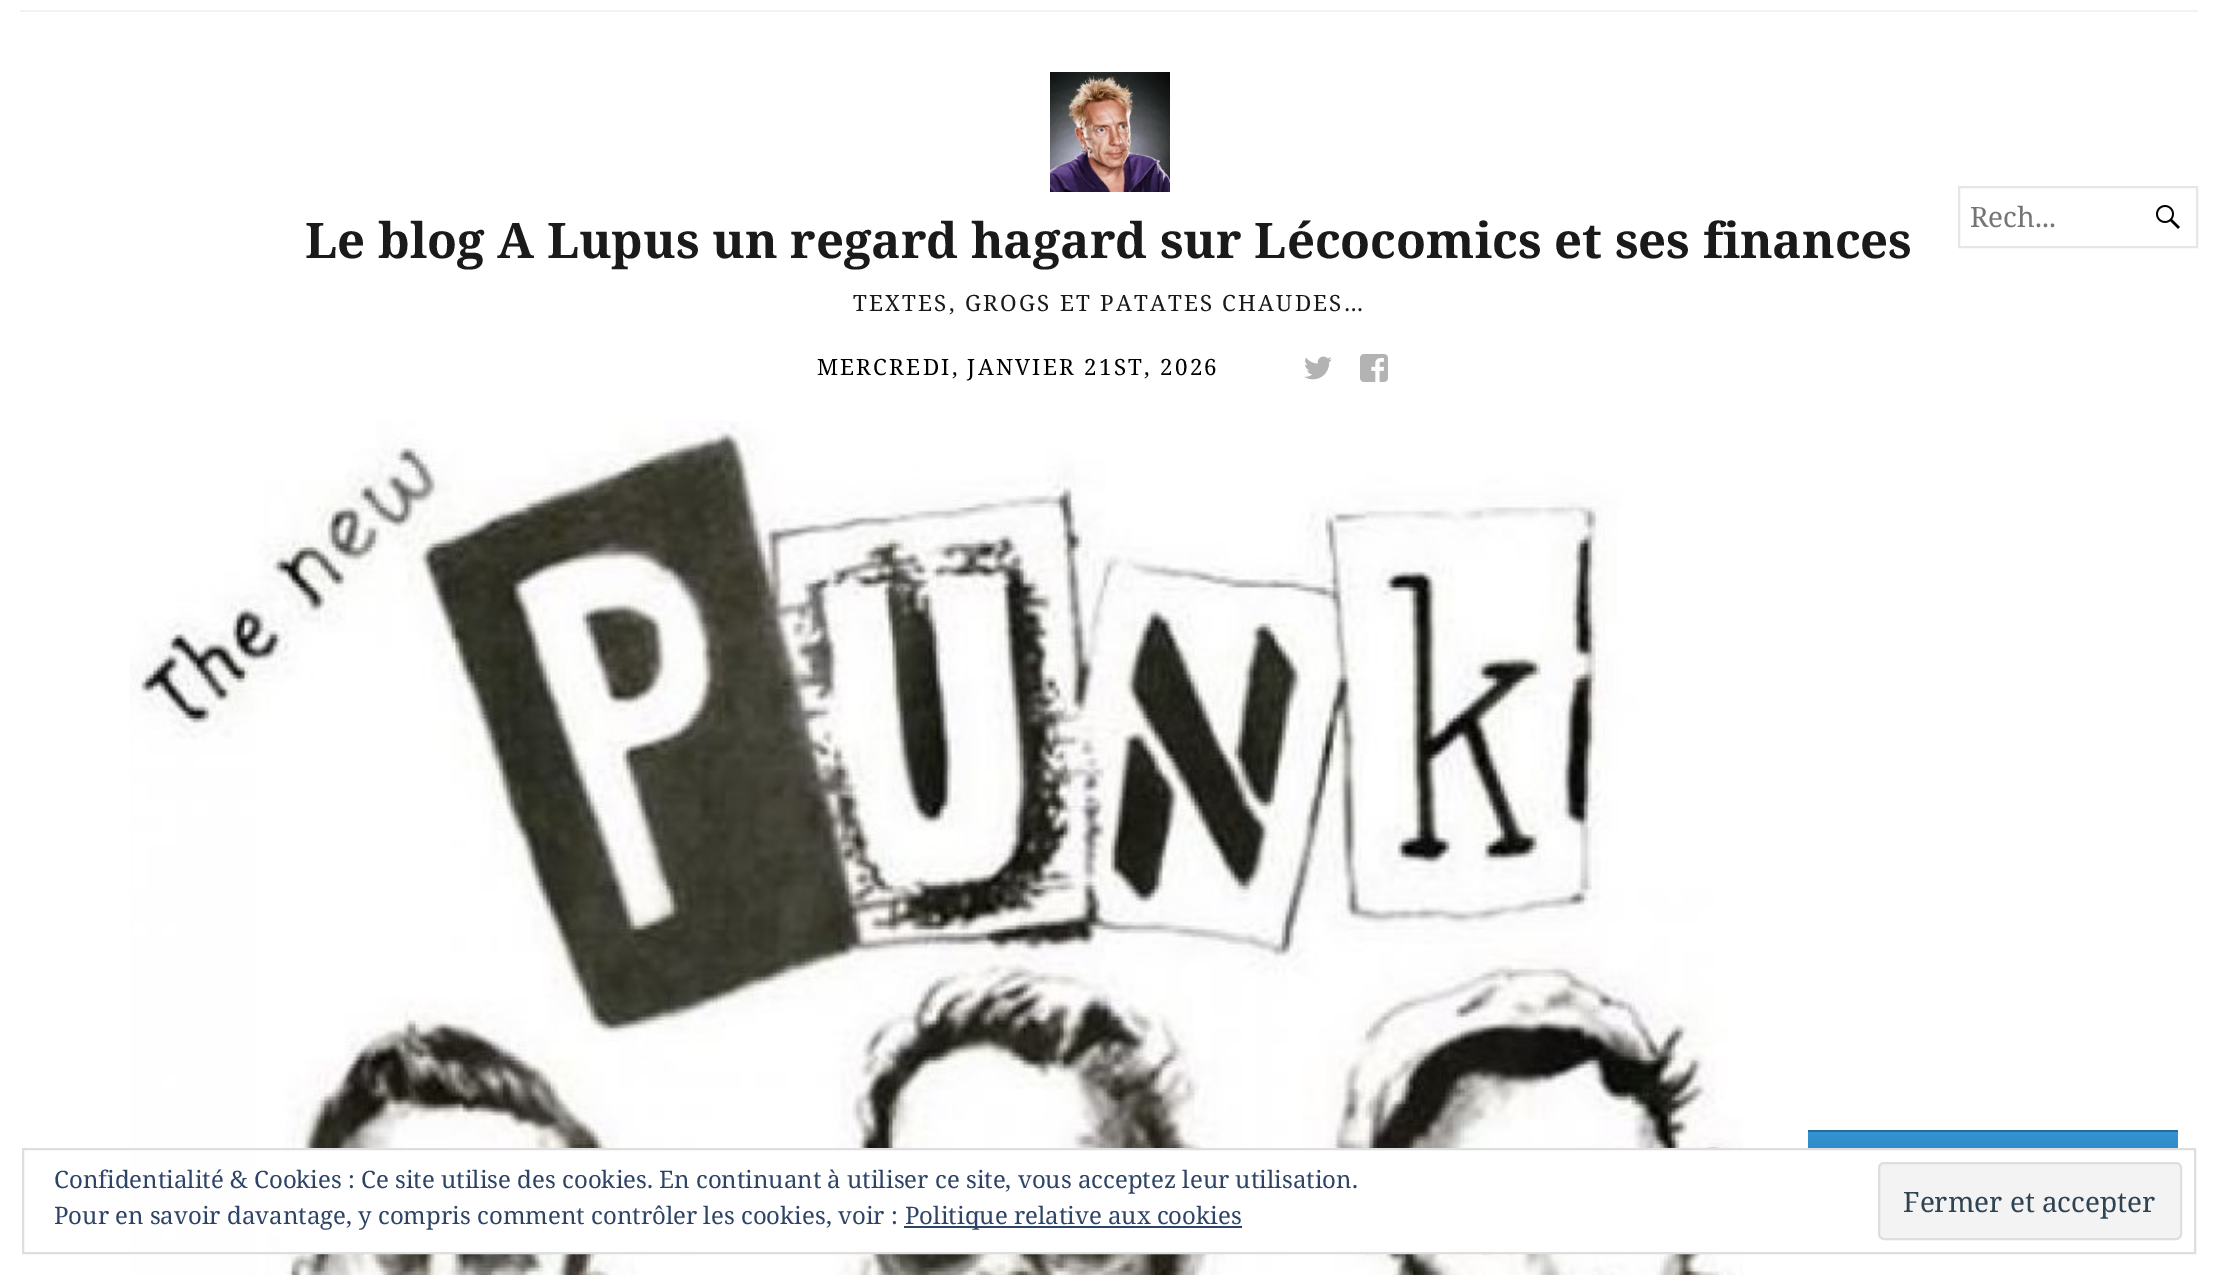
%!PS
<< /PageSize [2218 1275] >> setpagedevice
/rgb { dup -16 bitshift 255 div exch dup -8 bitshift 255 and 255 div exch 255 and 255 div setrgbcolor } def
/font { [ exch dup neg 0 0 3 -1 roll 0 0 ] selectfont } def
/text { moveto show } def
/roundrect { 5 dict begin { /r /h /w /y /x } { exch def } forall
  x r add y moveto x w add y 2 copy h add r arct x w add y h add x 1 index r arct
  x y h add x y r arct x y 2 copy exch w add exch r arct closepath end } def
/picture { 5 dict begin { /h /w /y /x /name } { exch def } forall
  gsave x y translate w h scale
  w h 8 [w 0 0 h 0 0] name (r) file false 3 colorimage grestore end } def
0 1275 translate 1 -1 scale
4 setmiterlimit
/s1 { /NotoSerif-Regular 28 font 16#757575 rgb } def
/s2 { /NotoSerif-Bold 49 font 16#1A1A1A rgb } def
/s3 { /NotoSerif-Regular 24 font 16#2E4467 rgb } def
/s4 { /NotoSerif-Regular 28 font 16#2E4453 rgb } def
16#FFFFFF rgb
0 0 2218 1275 rectfill
16#F2F2F2 rgb
20 10 2178 2 rectfill
16#E6E6E6 rgb
2 setlinewidth
1959 187 238 60 rectstroke
s1
(Rech...) 1970 227 text
(pic1.raw) 2156 205 24 24 picture
(pic2.raw) 1050 72 120 120 picture
s2
(Le blog A Lupus un regard hagard sur Lécocomics et ses finances) 305 258 text
/NotoSerif-Regular 22.4 font
853 311 moveto 2.25 0 (TEXTES, GROGS ET PATATES CHAUDES…) ashow
16#000000 rgb
817 375 moveto 2.25 0 (MERCREDI, JANVIER 21ST, 2026) ashow
(pic3.raw) 1304 356 28 24 picture
(pic4.raw) 1360 354 28 28 picture
(pic5.raw) 130 420 1613 855 picture
gsave 1808 1130 moveto 2178 1130 lineto 2178 1132 lineto 1808 1132 lineto closepath clip newpath
<< /ShadingType 2 /ColorSpace /DeviceRGB /Coords [1993 1030 1993 1132] /Extend [true true] /Function << /FunctionType 2 /Domain [0 1] /C0 [0.204 0.576 0.824] /C1 [0.137 0.424 0.612] /N 1 >> >> shfill grestore
gsave 1808 1132 moveto 2178 1132 lineto 2178 1148 lineto 1808 1148 lineto closepath clip newpath
<< /ShadingType 2 /ColorSpace /DeviceRGB /Coords [1993 1132 1993 1234] /Extend [true true] /Function << /FunctionType 2 /Domain [0 1] /C0 [0.204 0.576 0.824] /C1 [0.137 0.424 0.612] /N 1 >> >> shfill grestore
16#FFFFFF rgb
280 1150 1463 102 rectfill
16#DEDEDE rgb
23 1149 2172 104 rectstroke
s3
(Confidentialité & Cookies : Ce site utilise des cookies. En continuant à utiliser ce site, vous acceptez leur utilisation.) 54 1188 text
(Pour en savoir davantage, y compris comment contrôler les cookies, voir :) 54 1224 text
904 1226 338 2 rectfill
(Politique relative aux cookies) 905 1224 text
16#F3F3F3 rgb
1879 1163 302 76 5 roundrect gsave fill grestore
16#DEDEDE rgb
stroke
s4
(Fermer et accepter) 1903 1212 text
showpage
